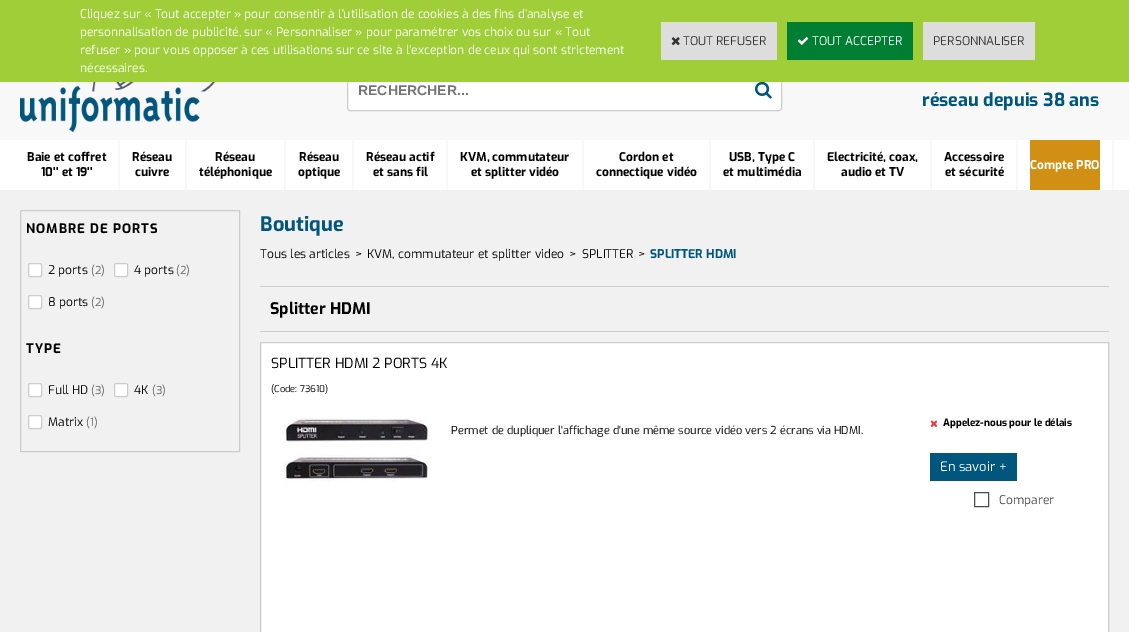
%!PS
<< /PageSize [1129 632] >> setpagedevice
/rgb { dup -16 bitshift 255 div exch dup -8 bitshift 255 and 255 div exch 255 and 255 div setrgbcolor } def
/font { [ exch dup neg 0 0 3 -1 roll 0 0 ] selectfont } def
/text { moveto show } def
/roundrect { 5 dict begin { /r /h /w /y /x } { exch def } forall
  x r add y moveto x w add y 2 copy h add r arct x w add y h add x 1 index r arct
  x y h add x y r arct x y 2 copy exch w add exch r arct closepath end } def
/picture { 5 dict begin { /h /w /y /x /name } { exch def } forall
  gsave x y translate w h scale
  w h 8 [w 0 0 h 0 0] name (r) file false 3 colorimage grestore end } def
0 632 translate 1 -1 scale
4 setmiterlimit
/s1 { /Exo-Regular 12 font 16#FFFFFF rgb } def
/s2 { /Exo-Regular 12 font 16#333333 rgb } def
/s3 { /LiberationSans-Bold 14 font 16#757575 rgb } def
/s4 { /Exo-Bold 18 font 16#00567C rgb } def
/s5 { /Exo-Bold 12 font 16#000000 rgb } def
/s6 { /Exo-Bold 12 font 16#FFFFFF rgb } def
/s7 { /Exo-Regular 12 font 16#000000 rgb } def
/s8 { /Exo-Regular 11 font 16#666666 rgb } def
/s9 { /Exo-Bold 20 font 16#00567C rgb } def
/s10 { /Exo-Bold 12 font 16#00567C rgb } def
/s11 { /Exo-Bold 16 font 16#000000 rgb } def
/s12 { /Exo-Regular 14 font 16#000000 rgb } def
/s13 { /Exo-Regular 9.25 font 16#000000 rgb } def
/s14 { /Exo-Regular 11 font 16#000000 rgb } def
/s15 { /Exo-Bold 10 font 16#000000 rgb } def
/s16 { /Exo-Regular 13 font 16#FFFFFF rgb } def
/s17 { /Exo-Regular 12 font 16#4D4D4D rgb } def
16#F1F1F1 rgb
0 0 1129 632 rectfill
16#F8F8F8 rgb
0 82 1129 58 rectfill
16#FFFFFF rgb
347.5 69.5 434 41 2.5 roundrect gsave fill grestore
16#CCCCCC rgb
stroke
16#A0CE38 rgb
0 0 1129 82 rectfill
s1
(Cliquez sur « Tout accepter » pour consentir à l'utilisation de cookies à des fins d’analyse et) 80 18 text
(personnalisation de publicité, sur « Personnaliser » pour paramétrer vos choix ou sur « Tout) 80 36 text
(refuser » pour vous opposer à ces utilisations sur ce site à l’exception de ceux qui sont strictement) 80 54 text
(nécessaires.) 80 72 text
16#DDDDDD rgb
661 22 116 38 rectfill
(pic1.raw) 671 37 9 9 picture
s2
(TOUT REFUSER) 683 45 text
16#007E33 rgb
787 22 126 38 rectfill
(pic2.raw) 797 37 12 8 picture
s1
(TOUT ACCEPTER) 812 45 text
16#DDDDDD rgb
923 22 112 38 rectfill
s2
(PERSONNALISER) 933 45 text
16#FFFFFF rgb
0 140 1129 50 rectfill
(pic3.raw) 20 82 195 50 picture
s3
(RECHERCHER...) 358 95 text
(pic4.raw) 755 82 17 17 picture
s4
(réseau depuis 38 ans) 922 106 text
16#F8F8F8 rgb
118 140 2 50 rectfill
s5
(Baie et coffret) 27 161 text
(10'' et 19'') 41 176 text
16#F8F8F8 rgb
185 140 2 50 rectfill
s5
(Réseau) 132 161 text
(cuivre) 135 176 text
16#F8F8F8 rgb
284 140 2 50 rectfill
s5
(Réseau) 215 161 text
(téléphonique) 199 176 text
16#F8F8F8 rgb
352 140 2 50 rectfill
s5
(Réseau) 299 161 text
(optique) 298 176 text
16#F8F8F8 rgb
446 140 2 50 rectfill
s5
(Réseau actif) 366 161 text
(et sans fil) 373 176 text
16#F8F8F8 rgb
582 140 2 50 rectfill
s5
(KVM, commutateur) 460 161 text
(et splitter vidéo) 471 176 text
16#F8F8F8 rgb
709 140 2 50 rectfill
s5
(Cordon et) 619 161 text
(connectique vidéo) 596 176 text
16#F8F8F8 rgb
813 140 2 50 rectfill
s5
(USB, Type C) 729 161 text
(et multimédia) 723 176 text
16#F8F8F8 rgb
930 140 2 50 rectfill
s5
(Electricité, coax,) 827 161 text
(audio et TV) 841 176 text
16#F8F8F8 rgb
1016 140 2 50 rectfill
s5
(Accessoire) 944 161 text
(et sécurité) 945 176 text
16#F8F8F8 rgb
1112 140 2 50 rectfill
16#D19014 rgb
1030 140 70 50 rectfill
s6
(Compte PRO) 1030 169 text
16#CCCCCC rgb
20.5 210.5 219 241 rectstroke
/Exo-Bold 13 font
16#000000 rgb
26 233 moveto 1 0 (NOMBRE DE PORTS) ashow
16#FFFFFF rgb
28.5 263.5 13 13 1.5 roundrect gsave fill grestore
16#CCCCCC rgb
stroke
s7
(2 ports) 48 274 text
s8
(\(2\)) 91 274 text
16#FFFFFF rgb
114.5 263.5 13 13 1.5 roundrect gsave fill grestore
16#CCCCCC rgb
stroke
s7
(4 ports) 134 274 text
s8
(\(2\)) 176 274 text
16#FFFFFF rgb
28.5 295.5 13 13 1.5 roundrect gsave fill grestore
16#CCCCCC rgb
stroke
s7
(8 ports) 48 306 text
s8
(\(2\)) 91 306 text
/Exo-Bold 13 font
16#000000 rgb
26 353 moveto 1 0 (TYPE) ashow
16#FFFFFF rgb
28.5 383.5 13 13 1.5 roundrect gsave fill grestore
16#CCCCCC rgb
stroke
s7
(Full HD) 48 394 text
s8
(\(3\)) 91 394 text
16#FFFFFF rgb
114.5 383.5 13 13 1.5 roundrect gsave fill grestore
16#CCCCCC rgb
stroke
s7
(4K) 134 394 text
s8
(\(3\)) 152 394 text
16#FFFFFF rgb
28.5 415.5 13 13 1.5 roundrect gsave fill grestore
16#CCCCCC rgb
stroke
s7
(Matrix) 48 426 text
s8
(\(1\)) 86 426 text
s9
(Boutique) 260 231 text
s7
(Tous les articles) 260 258 text
(>) 355 258 text
(KVM, commutateur et splitter video) 367 258 text
(>) 569 258 text
(SPLITTER) 582 258 text
(>) 638 258 text
s10
(SPLITTER HDMI) 650 258 text
16#CCCCCC rgb
260 286 849 1 rectfill
260 331 849 1 rectfill
s11
(Splitter HDMI) 270 314 text
16#FFFFFF rgb
260.5 342.5 moveto 1108.5 342.5 lineto 1108.5 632.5 lineto 260.5 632.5 lineto closepath gsave fill grestore
16#CCCCCC rgb
stroke
s12
(SPLITTER HDMI 2 PORTS 4K) 271 368 text
s13
(\(Code: 73610\)) 271 392 text
(pic5.raw) 281 414 150 68 picture
s14
(Permet de dupliquer l'affichage d'une même source vidéo vers 2 écrans via HDMI.) 451 434 text
(pic6.raw) 930 420 8 7 picture
s15
(Appelez-nous pour le délais) 943 426 text
16#00567C rgb
930 453 87 28 rectfill
s16
(En savoir +) 940 471 text
16#4D4D4D rgb
974.5 492.5 14 14 rectstroke
s17
(Comparer) 999 504 text
showpage
